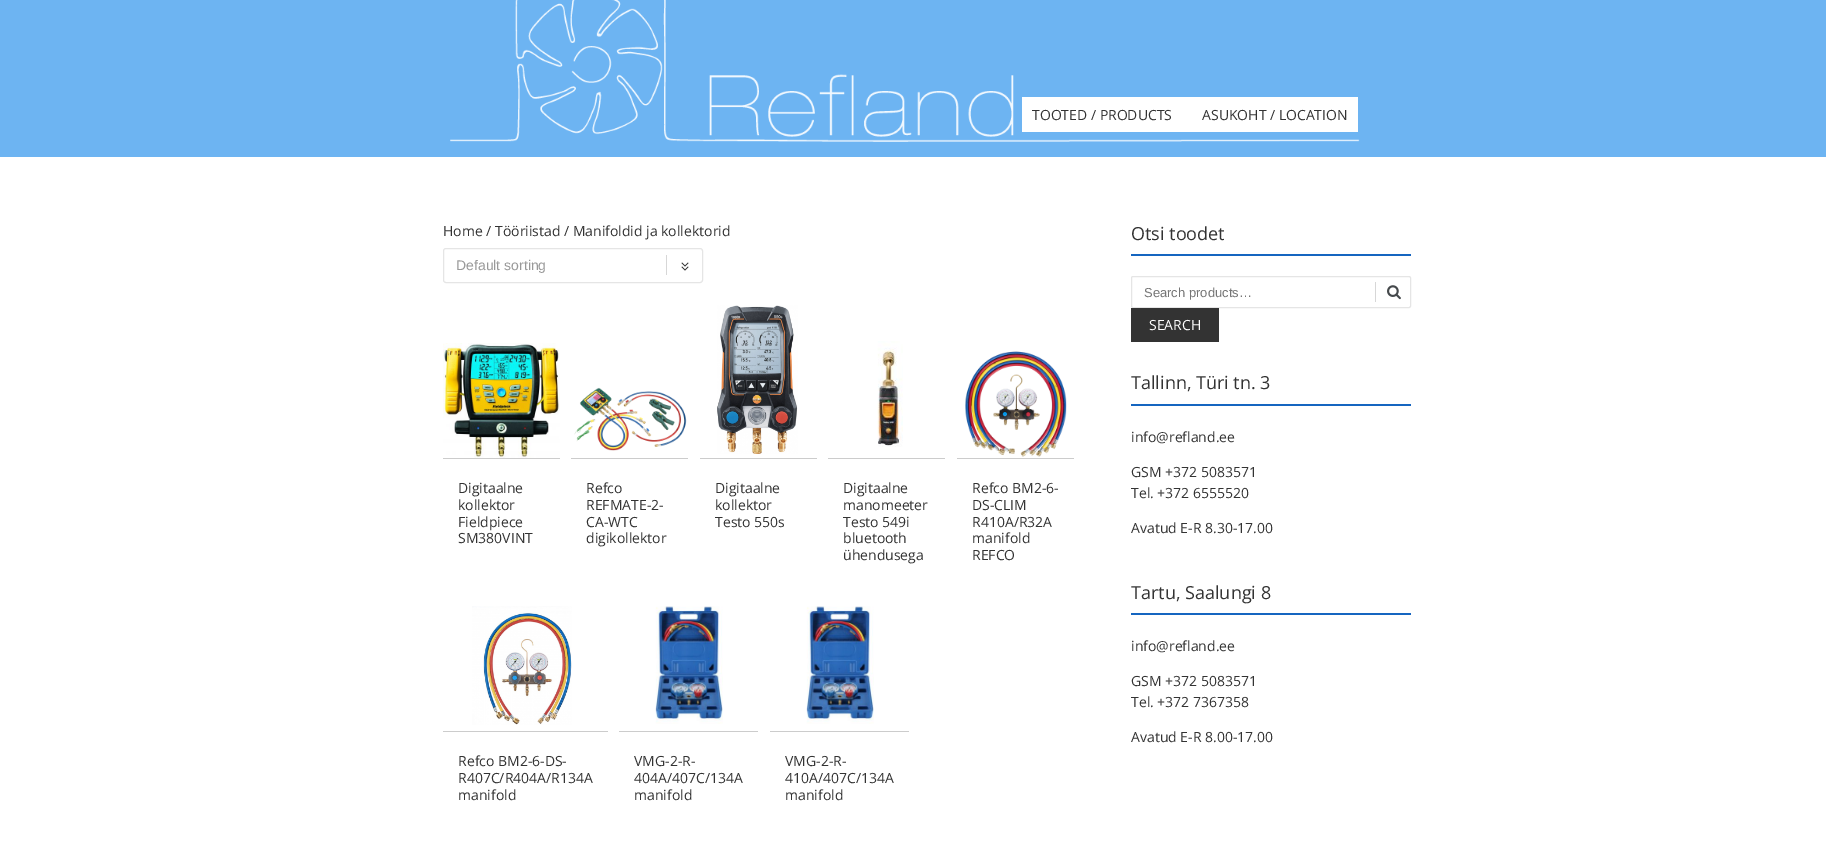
%!PS
<< /PageSize [1826 856] >> setpagedevice
/rgb { dup -16 bitshift 255 div exch dup -8 bitshift 255 and 255 div exch 255 and 255 div setrgbcolor } def
/font { [ exch dup neg 0 0 3 -1 roll 0 0 ] selectfont } def
/text { moveto show } def
/roundrect { 5 dict begin { /r /h /w /y /x } { exch def } forall
  x r add y moveto x w add y 2 copy h add r arct x w add y h add x 1 index r arct
  x y h add x y r arct x y 2 copy exch w add exch r arct closepath end } def
/picture { 5 dict begin { /h /w /y /x /name } { exch def } forall
  gsave x y translate w h scale
  w h 8 [w 0 0 h 0 0] name (r) file false 3 colorimage grestore end } def
0 856 translate 1 -1 scale
4 setmiterlimit
/s1 { /OpenSans-Regular 14 font 16#333333 rgb } def
/s2 { /LiberationSans-Regular 14 font 16#999999 rgb } def
/s3 { /OpenSans-Regular 18 font 16#333333 rgb } def
/s4 { /LiberationSans-Regular 13 font 16#757575 rgb } def
/s5 { /OpenSans-Regular 14 font 16#FFFFFF rgb } def
16#FFFFFF rgb
0 0 1826 856 rectfill
16#6DB4F2 rgb
0 0 1826 157 rectfill
(pic1.raw) 450 0 910 142 picture
16#FFFFFF rgb
1022 97 336 35 rectfill
s1
(TOOTED / PRODUCTS) 1032 120 text
(ASUKOHT / LOCATION) 1202 120 text
(Home / Tööriistad / Manifoldid ja kollektorid) 443 236 text
(pic2.raw) 666 255 23 20 picture
16#E5E5E5 rgb
443.5 248.5 259 34 2.5 roundrect stroke
s2
(Default sorting) 456 270 text
16#CCCCCC rgb
443 458 117 1 rectfill
(pic3.raw) 443 343 117 115 picture
s1
(Digitaalne) 458 493 text
(kollektor) 458 510 text
(Fieldpiece) 458 527 text
(SM380VINT) 458 543 text
16#CCCCCC rgb
571 458 117 1 rectfill
(pic4.raw) 574 387 113 64 picture
s1
(Refco) 586 493 text
(REFMATE-2-) 586 510 text
(CA-WTC) 586 527 text
(digikollektor) 586 543 text
16#CCCCCC rgb
700 458 117 1 rectfill
(pic5.raw) 717 305 81 149 picture
s1
(Digitaalne) 715 493 text
(kollektor) 715 510 text
(Testo 550s) 715 527 text
16#CCCCCC rgb
828 458 117 1 rectfill
(pic6.raw) 877 341 26 106 picture
s1
(Digitaalne) 843 493 text
(manomeeter) 843 510 text
(Testo 549i) 843 527 text
(bluetooth) 843 543 text
(ühendusega) 843 560 text
16#CCCCCC rgb
957 458 117 1 rectfill
(pic7.raw) 965 351 102 106 picture
s1
(Refco BM2-6-) 972 493 text
(DS-CLIM) 972 510 text
(R410A/R32A) 972 527 text
(manifold) 972 543 text
(REFCO) 972 560 text
16#CCCCCC rgb
443 731 165 1 rectfill
(pic8.raw) 472 606 100 119 picture
s1
(Refco BM2-6-DS-) 458 766 text
(R407C/R404A/R134A) 458 783 text
(manifold) 458 800 text
16#CCCCCC rgb
619 731 139 1 rectfill
(pic9.raw) 655 606 68 118 picture
s1
(VMG-2-R-) 634 766 text
(404A/407C/134A) 634 783 text
(manifold) 634 800 text
16#CCCCCC rgb
770 731 139 1 rectfill
(pic9.raw) 806 606 68 118 picture
s1
(VMG-2-R-) 785 766 text
(410A/407C/134A) 785 783 text
(manifold) 785 800 text
16#1565C0 rgb
1131 254 280 2 rectfill
s3
(Otsi toodet) 1131 240 text
16#E5E5E5 rgb
1131.5 276.5 279 31 1.5 roundrect stroke
s4
(Search products…) 1144 297 text
16#D7D7D7 rgb
1375 282 1 20 rectfill
(pic10.raw) 1387 285 14 15 picture
16#333333 rgb
1131 308 88 34 rectfill
s5
(SEARCH) 1149 330 text
16#1565C0 rgb
1131 404 280 2 rectfill
s3
(Tallinn, Türi tn. 3) 1131 389 text
s1
(info@refland.ee) 1131 442 text
(GSM +372 5083571) 1131 477 text
(Tel. +372 6555520) 1131 498 text
(Avatud E-R 8.30-17.00) 1131 533 text
16#1565C0 rgb
1131 613 280 2 rectfill
s3
(Tartu, Saalungi 8) 1131 599 text
s1
(info@refland.ee) 1131 651 text
(GSM +372 5083571) 1131 686 text
(Tel. +372 7367358) 1131 707 text
(Avatud E-R 8.00-17.00) 1131 742 text
showpage
